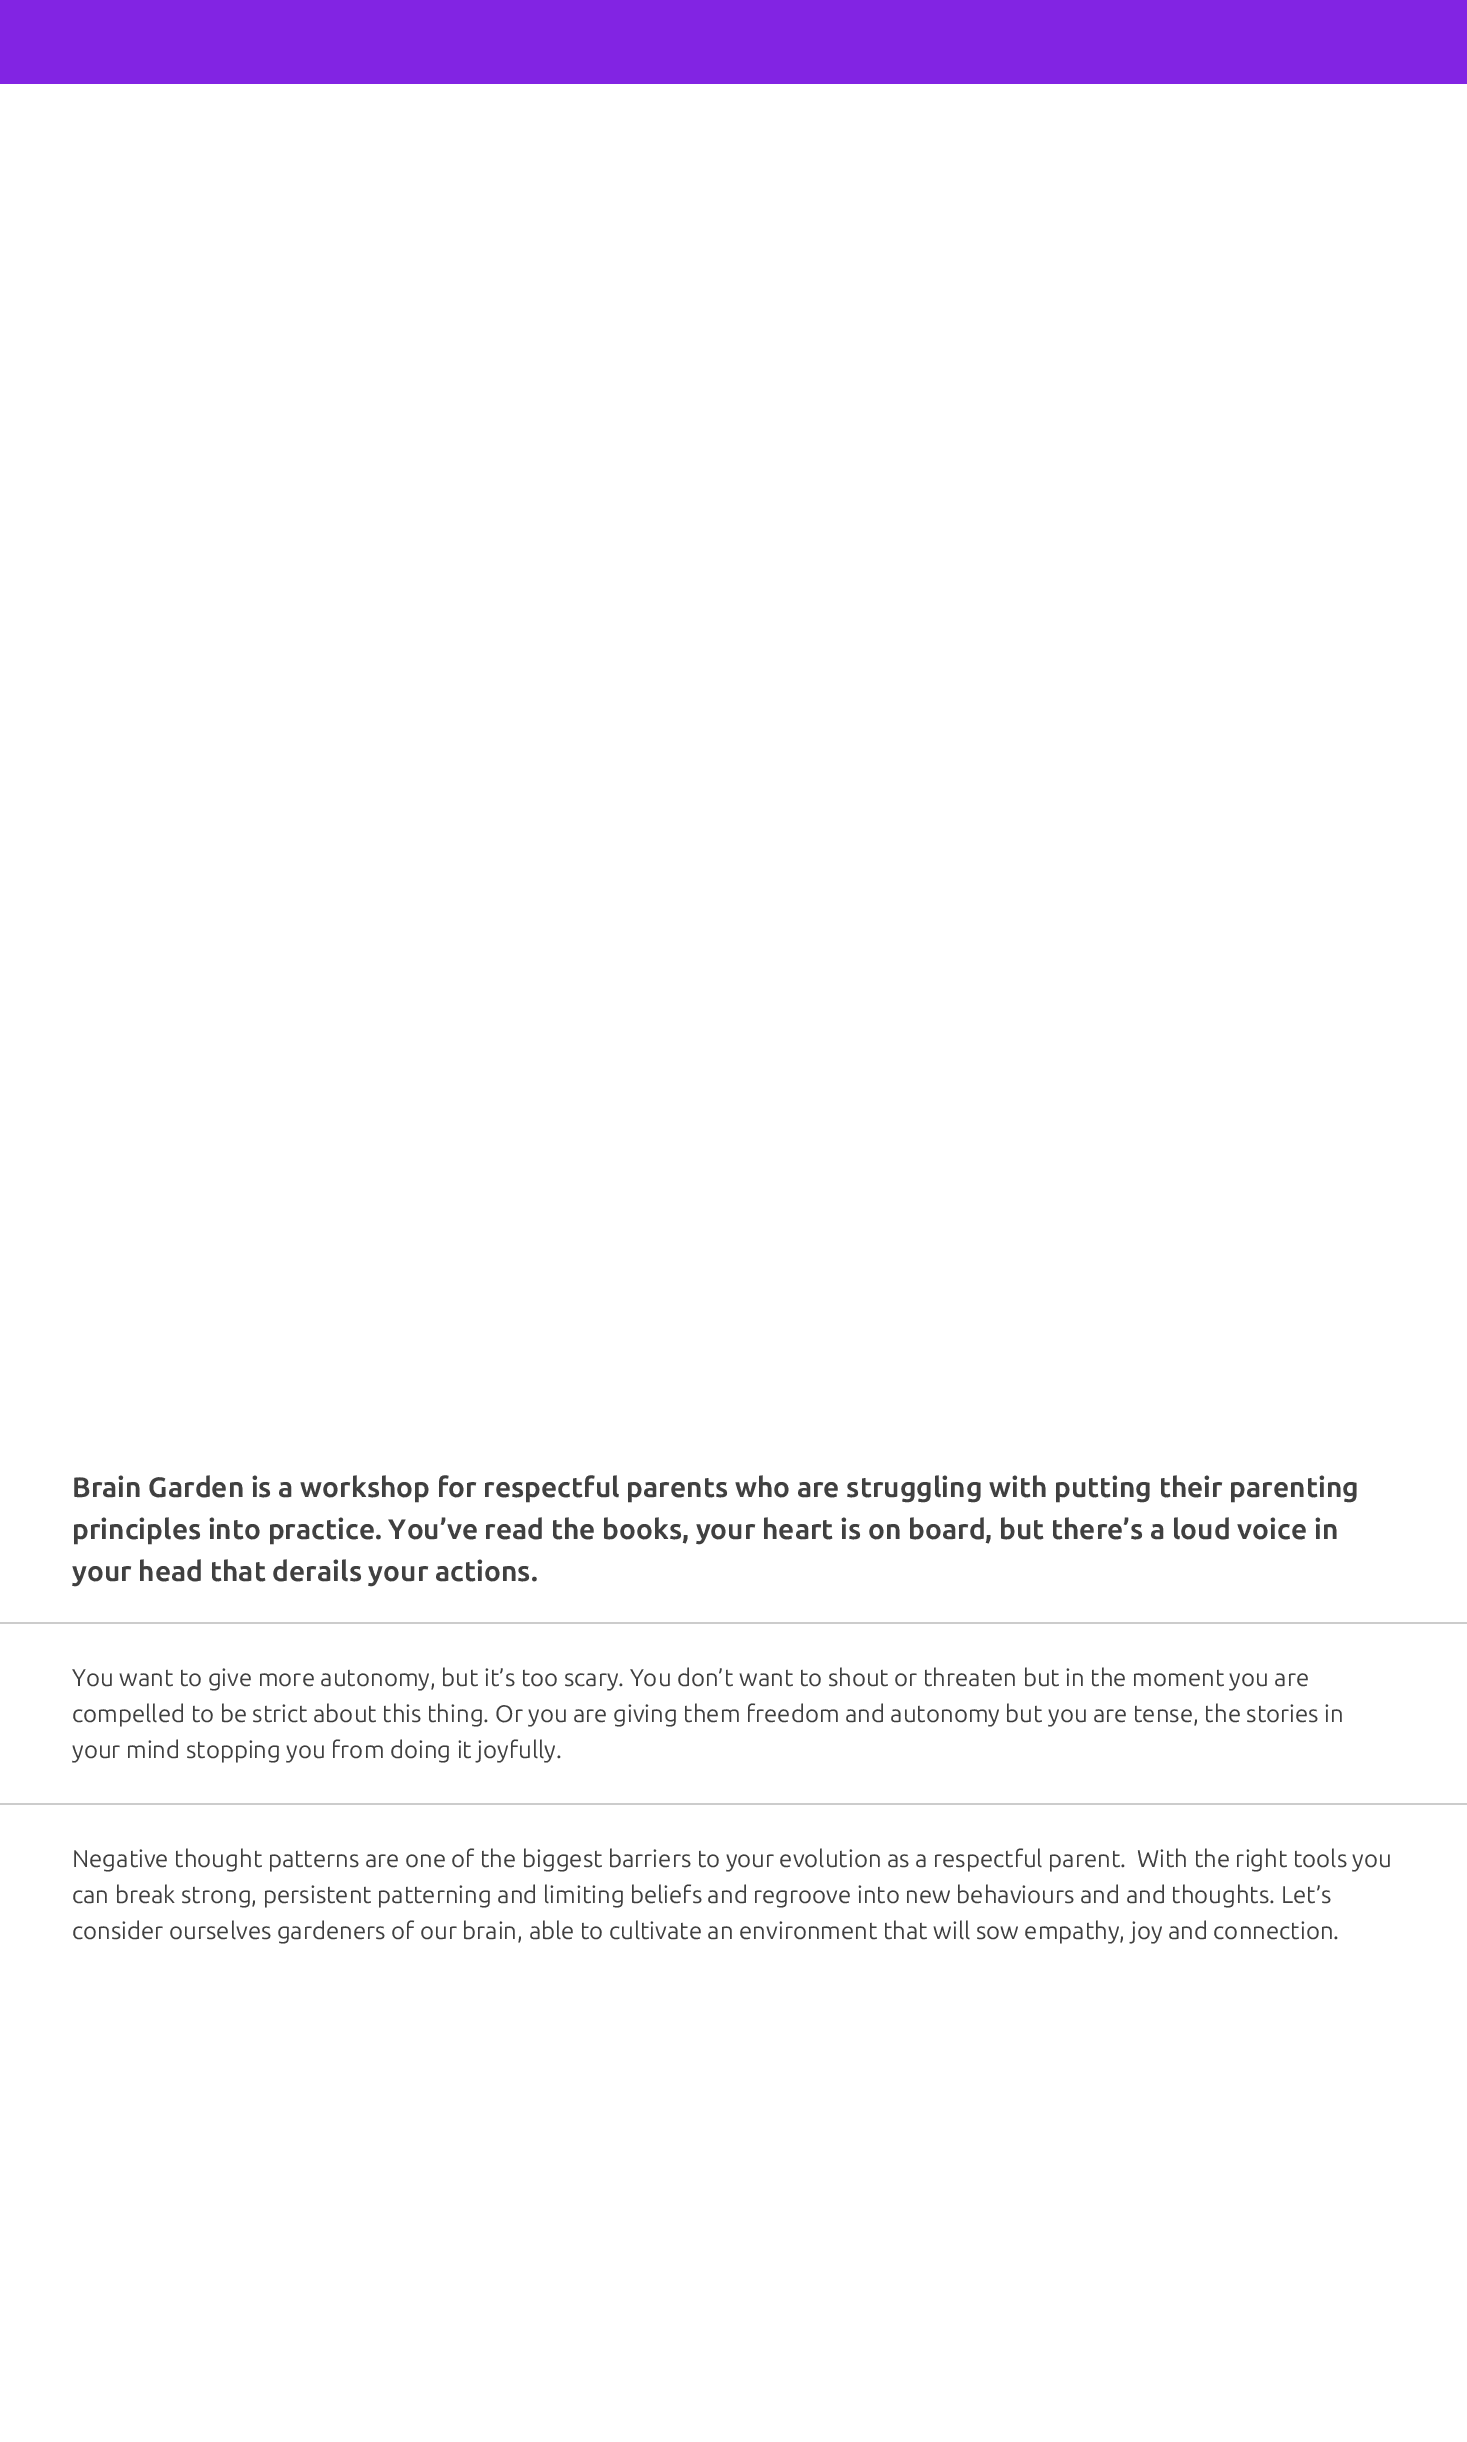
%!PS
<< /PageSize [1467 2442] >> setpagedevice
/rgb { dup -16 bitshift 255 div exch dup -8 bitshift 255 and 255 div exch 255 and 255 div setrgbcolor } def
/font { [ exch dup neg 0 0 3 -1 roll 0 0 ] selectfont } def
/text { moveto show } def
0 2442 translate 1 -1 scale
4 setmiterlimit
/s1 { /Ubuntu-Bold 28.1 font 16#404040 rgb } def
/s2 { /Ubuntu-Regular 24 font 16#404040 rgb } def
16#FFFFFF rgb
0 0 1467 2442 rectfill
16#8224E3 rgb
0 0 1467 84 rectfill
s1
(Brain Garden is a workshop for respectful parents who are struggling with putting their parenting) 72 1497 text
(principles into practice. You’ve read the books, your heart is on board, but there’s a loud voice in) 72 1539 text
(your head that derails your actions.) 72 1581 text
16#CCCCCC rgb
0 1622 1467 2 rectfill
s2
(You want to give more autonomy, but it’s too scary. You don’t want to shout or threaten but in the moment you are) 72 1686 text
(compelled to be strict about this thing. Or you are giving them freedom and autonomy but you are tense, the stories in) 72 1722 text
(your mind stopping you from doing it joyfully.) 72 1758 text
16#CCCCCC rgb
0 1803 1467 2 rectfill
s2
(Negative thought patterns are one of the biggest barriers to your evolution as a respectful parent.  With the right tools you) 72 1867 text
(can break strong, persistent patterning and limiting beliefs and regroove into new behaviours and and thoughts. Let’s) 72 1903 text
(consider ourselves gardeners of our brain, able to cultivate an environment that will sow empathy, joy and connection.) 72 1939 text
showpage
